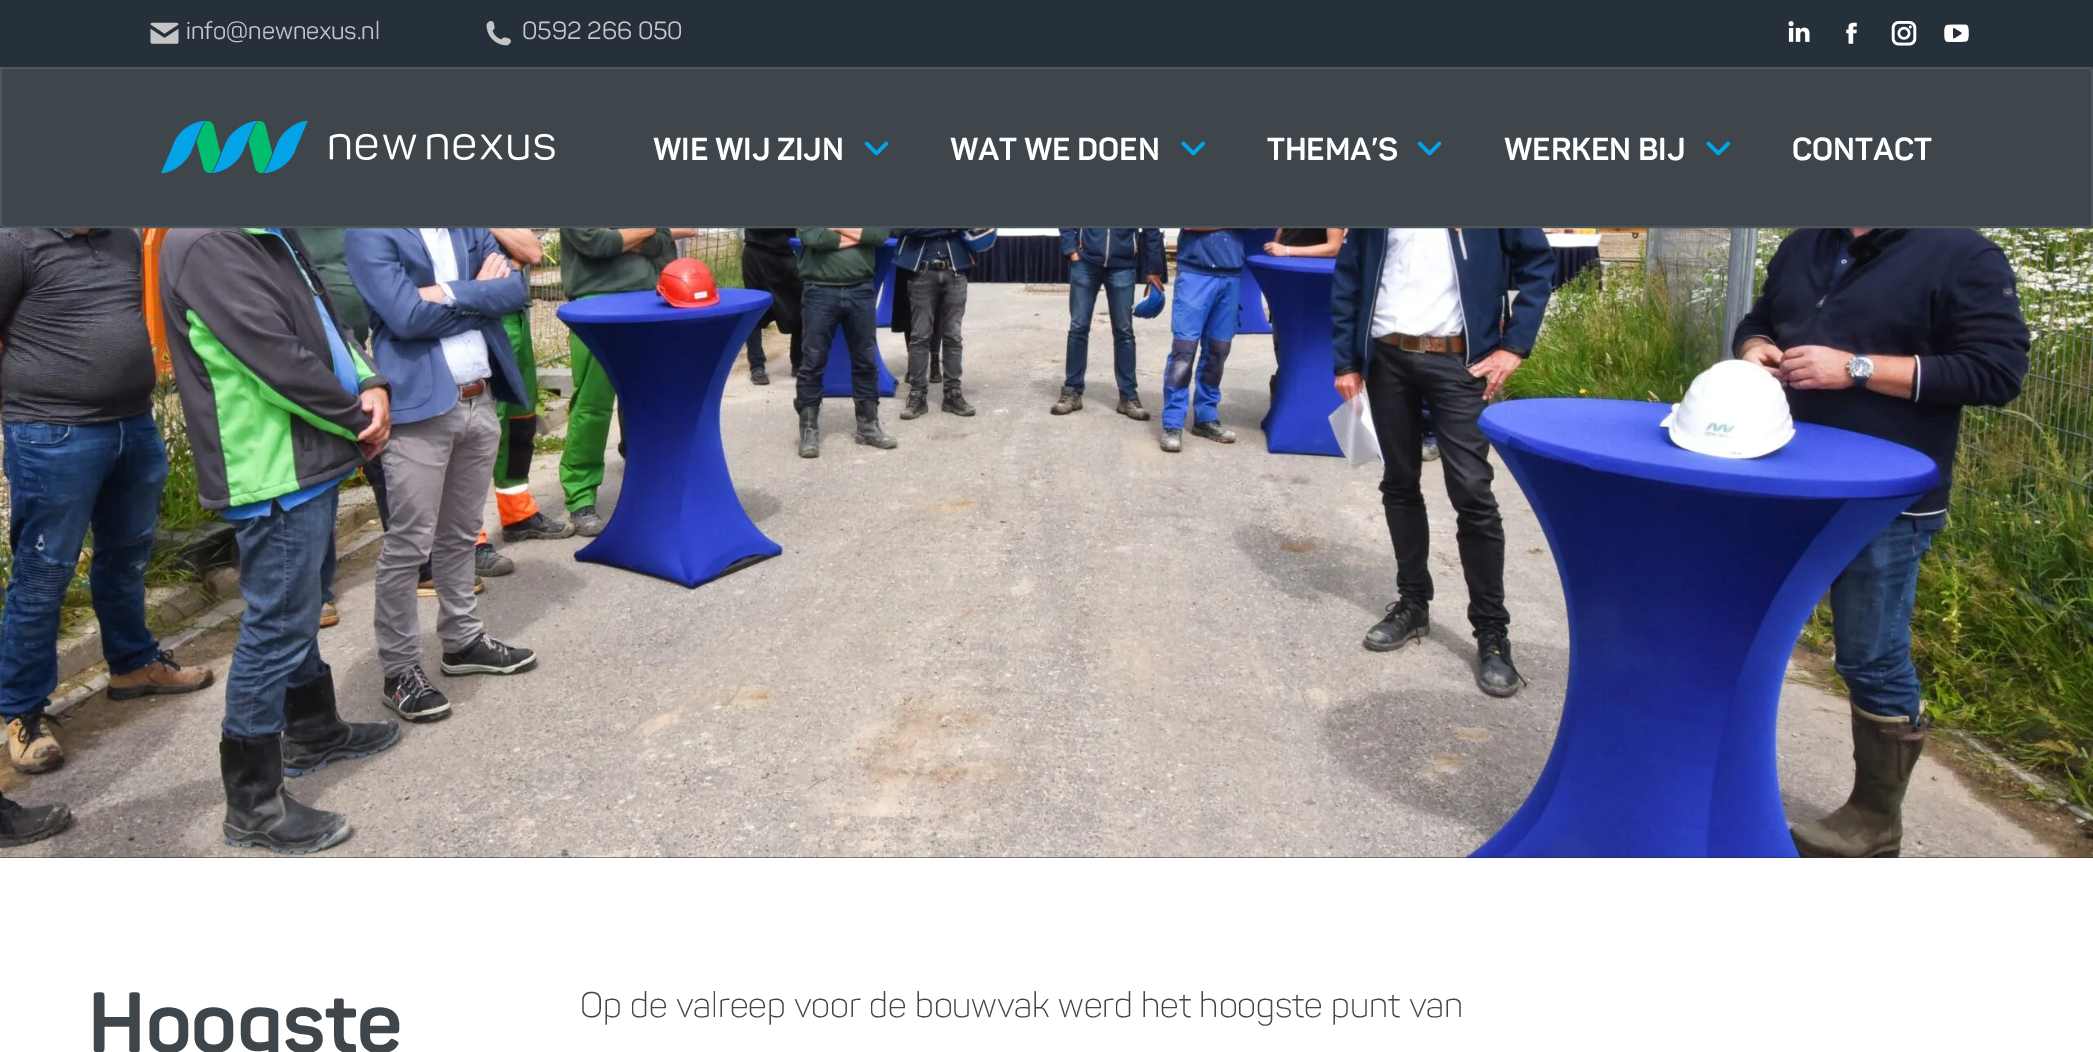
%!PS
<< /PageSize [2093 1052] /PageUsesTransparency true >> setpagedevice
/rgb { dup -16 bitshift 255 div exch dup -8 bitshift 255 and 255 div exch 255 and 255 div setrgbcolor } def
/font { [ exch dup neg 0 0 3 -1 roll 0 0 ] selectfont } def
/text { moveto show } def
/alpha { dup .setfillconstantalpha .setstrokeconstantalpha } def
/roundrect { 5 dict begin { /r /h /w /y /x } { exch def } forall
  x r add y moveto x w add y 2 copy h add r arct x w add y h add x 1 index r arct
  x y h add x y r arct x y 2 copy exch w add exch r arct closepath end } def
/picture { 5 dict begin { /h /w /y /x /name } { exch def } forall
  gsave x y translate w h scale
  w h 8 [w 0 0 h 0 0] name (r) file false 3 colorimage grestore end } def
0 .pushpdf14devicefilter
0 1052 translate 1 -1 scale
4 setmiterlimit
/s1 { /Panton-Regular 24.5 font 16#C6C5C5 rgb } def
/s2 { /Panton-Bold 31.5 font 16#FFFFFF rgb } def
/s3 { /Panton-Bold 84 font 16#3E464B rgb } def
/s4 { /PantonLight-Light 35 font 16#3E464B rgb } def
16#FFFFFF rgb
0 0 2093 1052 rectfill
16#222222 rgb
0 857 2093 1 rectfill
(pic10.raw) 0 67 2093 791 picture
0.5 alpha
16#000000 rgb
0 67 2093 161 rectfill
1 alpha
16#25303B rgb
0 0 2093 67 rectfill
(pic1.raw) 150 22 29 22 picture
s1
(info@newnexus.nl) 186 39 text
(pic2.raw) 486 21 25 25 picture
(0592 266 050) 522 39 text
(pic3.raw) 1788 21 22 21 picture
(pic4.raw) 1846 22 11 22 picture
(pic5.raw) 1891 21 26 25 picture
(pic6.raw) 1944 24 25 18 picture
16#3E464B rgb
1 68 2091 159 3 roundrect gsave fill grestore
16#4C565B rgb
2 setlinewidth
stroke
(pic7.raw) 161 121 394 52 picture
s2
(WIE WIJ ZIJN) 653 160 text
(pic8.raw) 864 141 25 15 picture
(WAT WE DOEN) 950 160 text
(pic9.raw) 1181 141 25 15 picture
(THEMA’S) 1267 160 text
(pic8.raw) 1417 141 25 15 picture
(WERKEN BIJ) 1504 160 text
(pic9.raw) 1706 141 25 15 picture
(CONTACT) 1792 160 text
s3
(Hoogste) 88 1052 text
s4
(Op de valreep voor de bouwvak werd het hoogste punt van) 580 1017 text
.poppdf14devicefilter showpage
